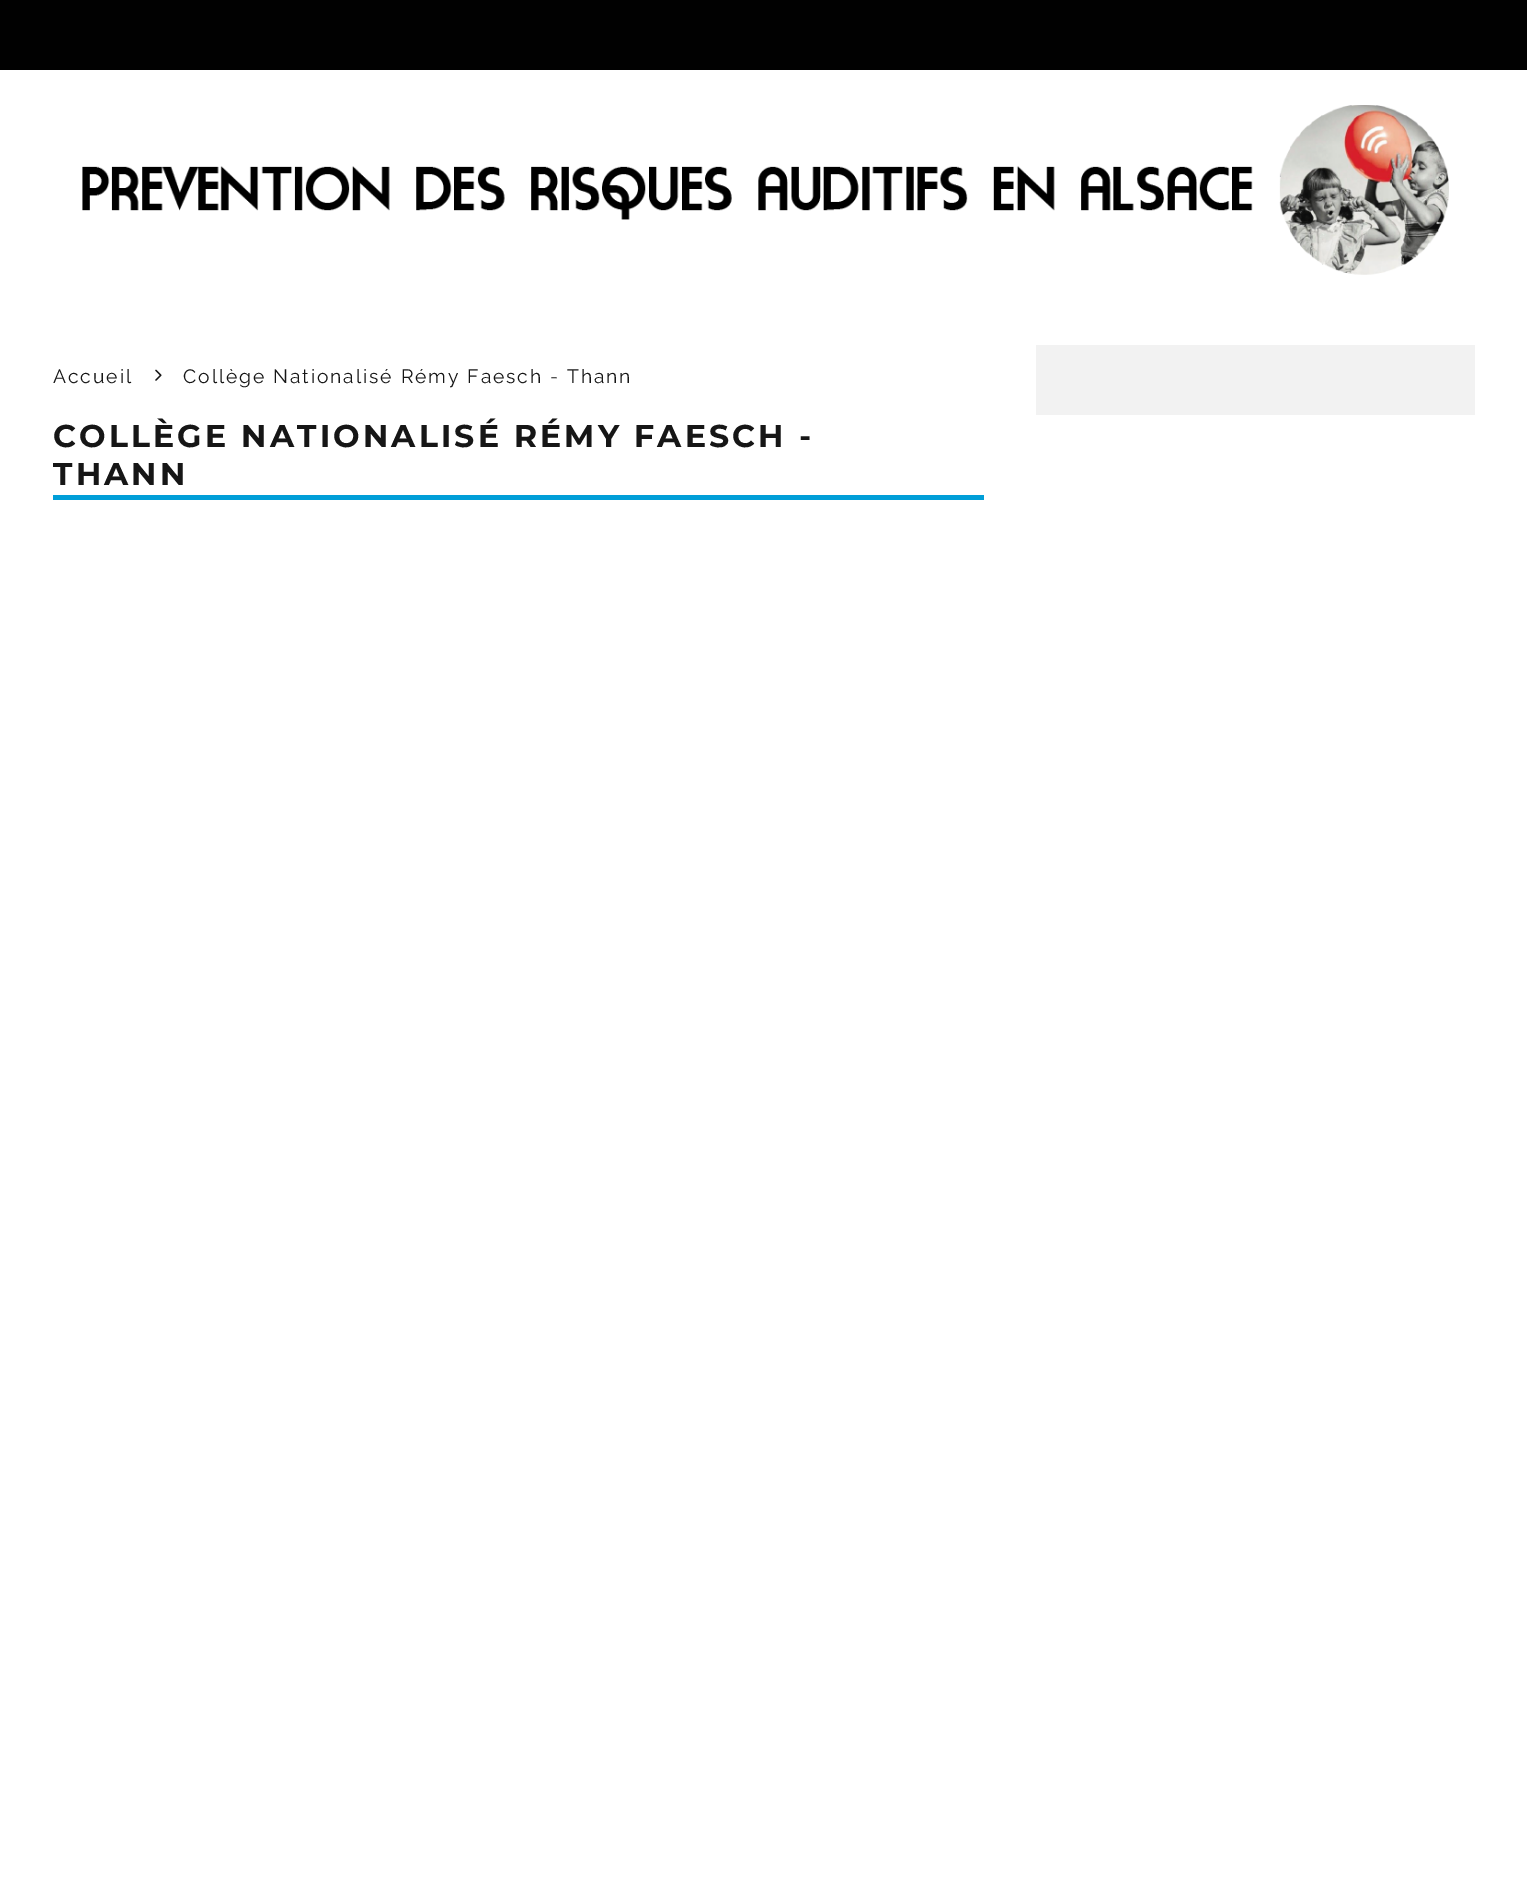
%!PS
<< /PageSize [1527 1879] >> setpagedevice
/rgb { dup -16 bitshift 255 div exch dup -8 bitshift 255 and 255 div exch 255 and 255 div setrgbcolor } def
/font { [ exch dup neg 0 0 3 -1 roll 0 0 ] selectfont } def
/picture { 5 dict begin { /h /w /y /x /name } { exch def } forall
  gsave x y translate w h scale
  w h 8 [w 0 0 h 0 0] name (r) file false 3 colorimage grestore end } def
0 1879 translate 1 -1 scale
4 setmiterlimit
16#FFFFFF rgb
0 0 1527 1879 rectfill
16#010101 rgb
0 0 1527 70 rectfill
(pic1.raw) 82 105 1367 170 picture
/Raleway-Regular 19.25 font
16#161616 rgb
53 383 moveto 1.95 0 (Accueil) ashow
(pic2.raw) 155 369 7 12 picture
183 383 moveto 1.95 0 (Collège Nationalisé Rémy Faesch - Thann) ashow
16#009ED8 rgb
53 495 931 5 rectfill
/Montserrat-Bold 31.5 font
16#161616 rgb
53 447 moveto 3.15 0 (COLLÈGE NATIONALISÉ RÉMY FAESCH -) ashow
gsave
53 418 931 77 rectclip
53 485 moveto 3.15 0 (THANN) ashow
grestore
16#F2F2F2 rgb
1036 345 439 70 rectfill
showpage
